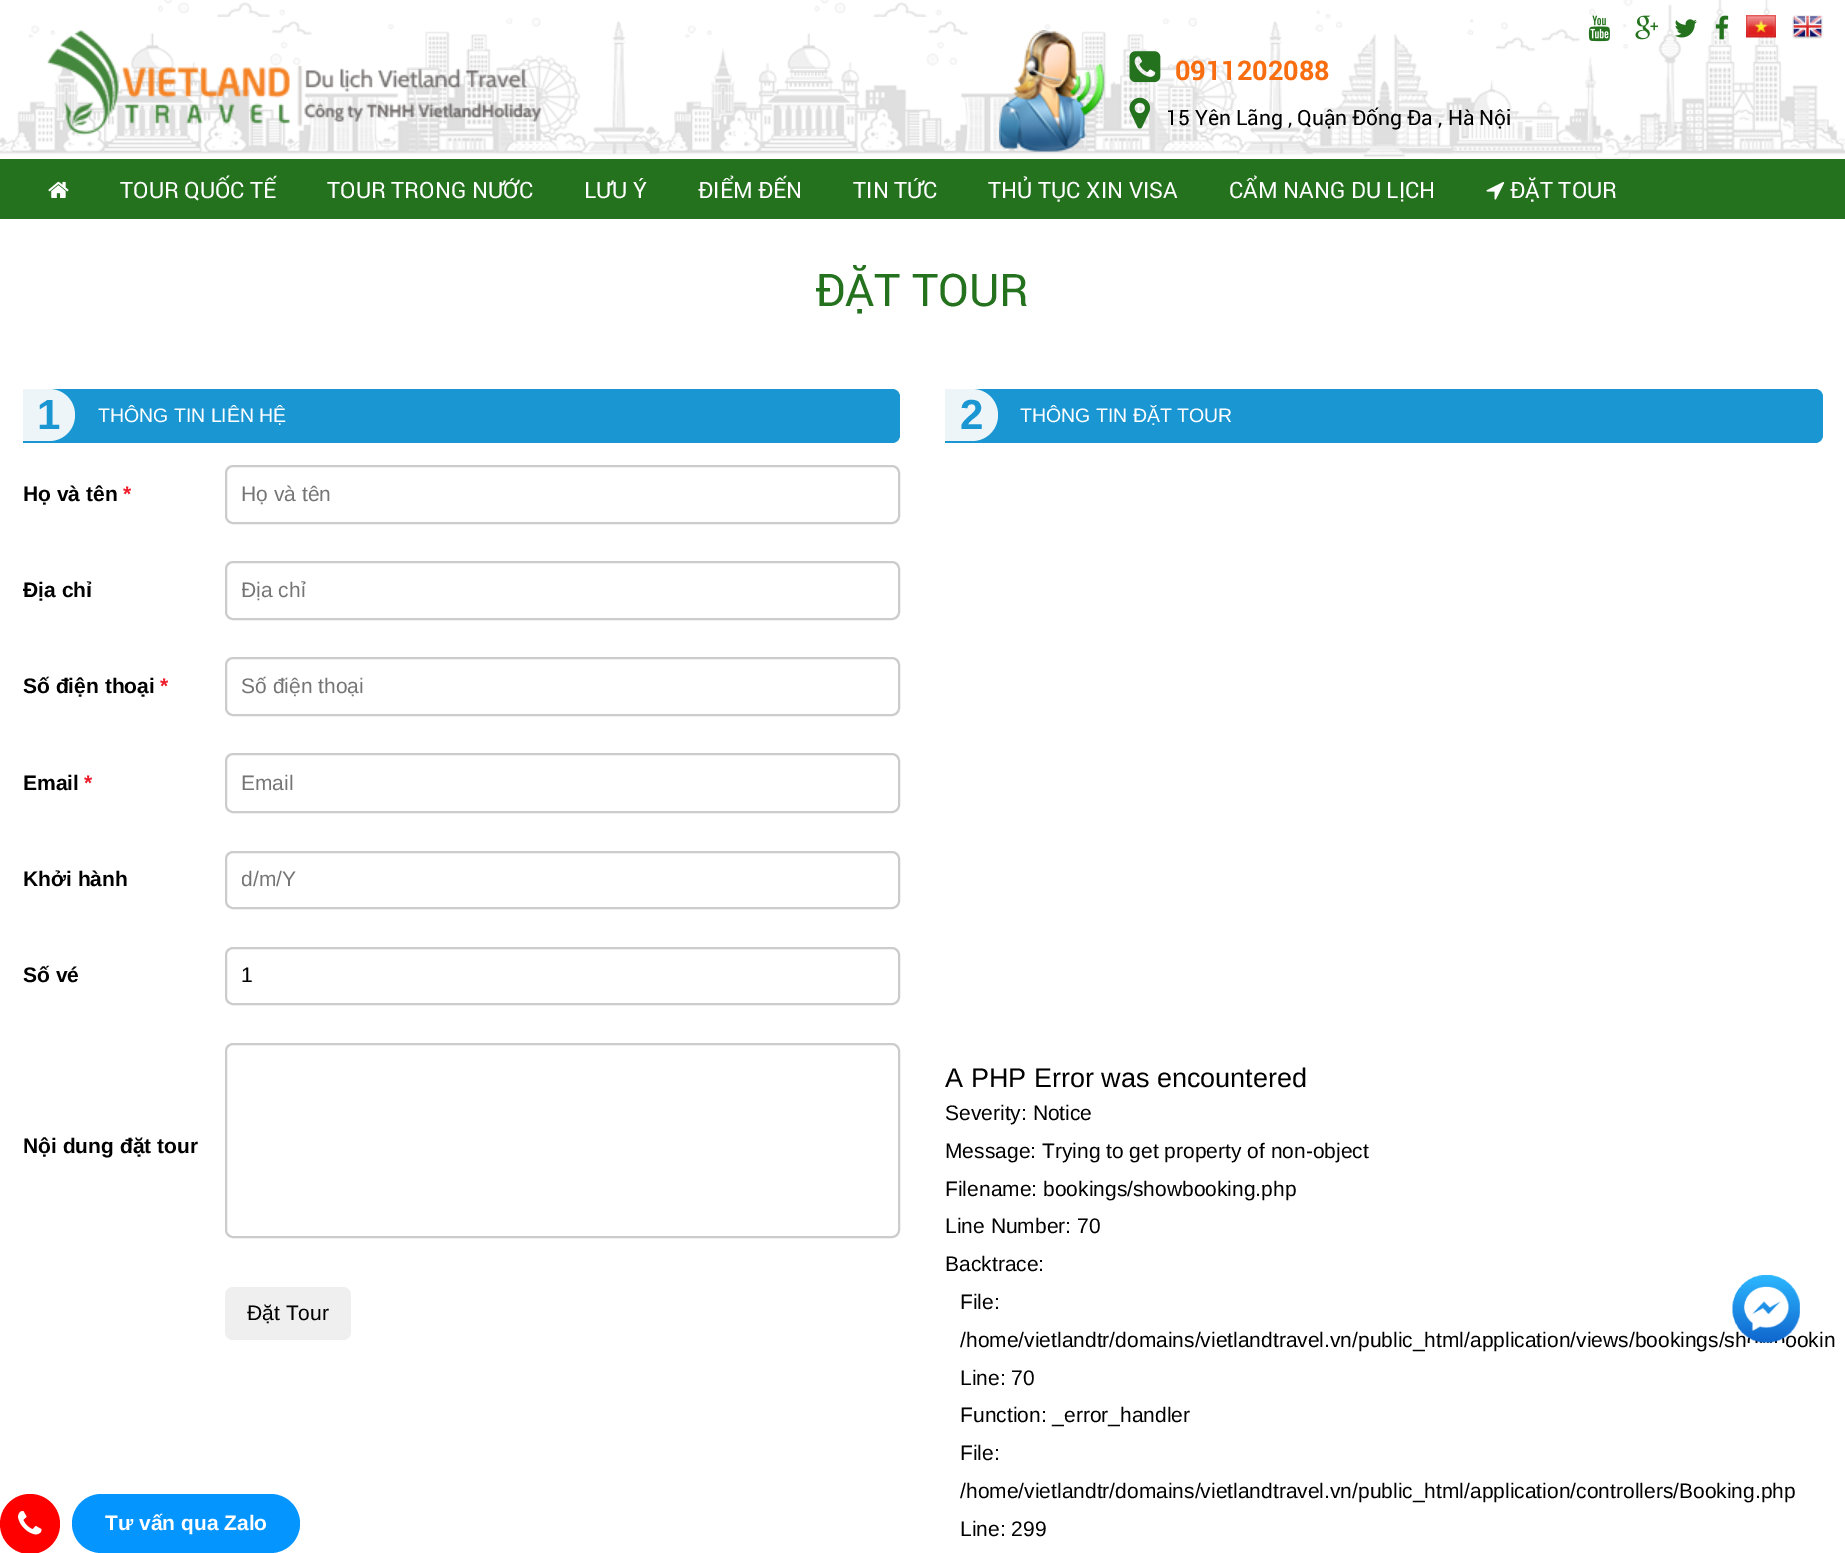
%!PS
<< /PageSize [1845 1553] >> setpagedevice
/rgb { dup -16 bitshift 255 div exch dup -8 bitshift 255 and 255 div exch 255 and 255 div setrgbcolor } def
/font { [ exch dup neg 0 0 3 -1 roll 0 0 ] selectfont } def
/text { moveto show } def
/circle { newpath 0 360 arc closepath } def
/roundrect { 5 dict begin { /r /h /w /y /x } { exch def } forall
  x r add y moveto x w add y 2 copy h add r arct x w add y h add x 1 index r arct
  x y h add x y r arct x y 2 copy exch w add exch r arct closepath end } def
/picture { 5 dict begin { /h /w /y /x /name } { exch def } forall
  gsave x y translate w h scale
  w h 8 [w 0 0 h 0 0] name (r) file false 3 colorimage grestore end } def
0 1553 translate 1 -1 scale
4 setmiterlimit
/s1 { /Roboto-Bold 27 font 16#F86D0F rgb } def
/s2 { /Roboto-Regular 21 font 16#000000 rgb } def
/s3 { /Roboto-Regular 22.5 font 16#FFFFFF rgb } def
/s4 { /Roboto-Regular 45 font 16#24721E rgb } def
/s5 { /LiberationSans-Bold 42 font 16#1A96D3 rgb } def
/s6 { /LiberationSans-Regular 19.5 font 16#FFFFFF rgb } def
/s7 { /LiberationSans-Bold 21 font 16#000000 rgb } def
/s8 { /LiberationSans-Bold 21 font 16#F01927 rgb } def
/s9 { /LiberationSans-Regular 21 font 16#757575 rgb } def
/s10 { /LiberationSans-Regular 21 font 16#000000 rgb } def
/s11 { /LiberationSans-Regular 27 font 16#000000 rgb } def
/s12 { /LiberationSans-Bold 21 font 16#FFFFFF rgb } def
16#FFFFFF rgb
0 0 1845 1553 rectfill
(pic1.raw) 0 0 1845 159 picture
(pic2.raw) 1588 15 22 27 picture
(pic3.raw) 1635 15 23 25 picture
(pic4.raw) 1674 19 23 19 picture
(pic5.raw) 1715 15 14 25 picture
(pic6.raw) 1746 15 30 23 picture
(pic7.raw) 1792 15 31 24 picture
(pic8.raw) 47 30 495 106 picture
(pic9.raw) 999 30 107 122 picture
(pic10.raw) 1129 51 32 32 picture
s1
(0911202088) 1175 80 text
(pic11.raw) 1129 97 22 32 picture
s2
(15 Yên Lãng , Quận Đống Đa , Hà Nội) 1166 125 text
16#24721E rgb
0 159 1845 60 rectfill
(pic12.raw) 48 181 21 17 picture
s3
(TOUR QUỐC TẾ) 120 198 text
(TOUR TRONG NƯỚC) 327 198 text
(LƯU Ý) 584 198 text
(ĐIỂM ĐẾN) 698 198 text
(TIN TỨC) 853 198 text
(THỦ TỤC XIN VISA) 988 198 text
(CẨM NANG DU LỊCH) 1229 198 text
(pic13.raw) 1486 182 19 18 picture
(ĐẶT TOUR) 1510 198 text
s4
(ĐẶT TOUR) 815 306 text
16#1A96D3 rgb
23 389 moveto 892 389 lineto 896.5 389 900 392.5 900 397 curveto 900 435 lineto 900 439.5 896.5 443 892 443 curveto 23 443 lineto closepath fill
16#EDF5F9 rgb
23 389 moveto 49 389 lineto 63.5 389 75 400.5 75 415 curveto 75 429.5 63.5 441 49 441 curveto 23 441 lineto closepath fill
s5
(1) 37 429 text
s6
(THÔNG TIN LIÊN HỆ) 98 422 text
s7
(Họ và tên) 23 501 text
s8
(*) 123 501 text
16#CCCCCC rgb
2 setlinewidth
226 466 673 57 7 roundrect stroke
s9
(Họ và tên) 241 501 text
s7
(Địa chỉ) 23 597 text
16#CCCCCC rgb
226 562 673 57 7 roundrect stroke
gsave
242 578 642 24 rectclip
s9
(Địa chỉ) 241 597 text
grestore
s7
(Số điện thoại) 23 693 text
s8
(*) 160 693 text
16#CCCCCC rgb
226 658 673 57 7 roundrect stroke
s9
(Số điện thoại) 241 693 text
s7
(Email) 23 790 text
s8
(*) 84 790 text
16#CCCCCC rgb
226 754 673 58 7 roundrect stroke
s9
(Email) 241 790 text
s7
(Khởi hành) 23 886 text
16#CCCCCC rgb
226 852 673 56 7 roundrect stroke
gsave
242 867 642 24 rectclip
s9
(d/m/Y) 241 886 text
grestore
s7
(Số vé) 23 982 text
16#CCCCCC rgb
226 948 673 56 7 roundrect stroke
s10
(1) 241 982 text
s7
(Nội dung đặt tour) 23 1153 text
16#CCCCCC rgb
226 1044 673 193 7 roundrect stroke
16#EFEFEF rgb
225 1287 126 53 8 roundrect fill
s10
(Đặt Tour) 247 1320 text
16#1A96D3 rgb
945 389 moveto 1815 389 lineto 1819.5 389 1823 392.5 1823 397 curveto 1823 435 lineto 1823 439.5 1819.5 443 1815 443 curveto 945 443 lineto closepath fill
16#EDF5F9 rgb
945 389 moveto 972 389 lineto 986.5 389 998 400.5 998 415 curveto 998 429.5 986.5 441 972 441 curveto 945 441 lineto closepath fill
s5
(2) 960 429 text
s6
(THÔNG TIN ĐẶT TOUR) 1020 422 text
s11
(A PHP Error was encountered) 945 1087 text
s10
(Severity: Notice) 945 1120 text
(Message: Trying to get property of non-object) 945 1158 text
(Filename: bookings/showbooking.php) 945 1196 text
(Line Number: 70) 945 1233 text
(Backtrace:) 945 1271 text
(File:) 960 1309 text
(/home/vietlandtr/domains/vietlandtravel.vn/public_html/application/views/bookings/sh) 960 1347 text
(ookin) 1785 1347 text
(Line: 70) 960 1385 text
(Function: _error_handler) 960 1422 text
(File:) 960 1460 text
(/home/vietlandtr/domains/vietlandtravel.vn/public_html/application/controllers/Booking.php) 960 1498 text
(Line: 299) 960 1536 text
(pic14.raw) 1732 1275 68 68 picture
16#FF0000 rgb
30 1524 30 circle fill
(pic15.raw) 18 1511 24 24 picture
16#0595FF rgb
72 1494 228 59 29.5 roundrect fill
s12
(Tư vấn qua Zalo) 105 1530 text
showpage
